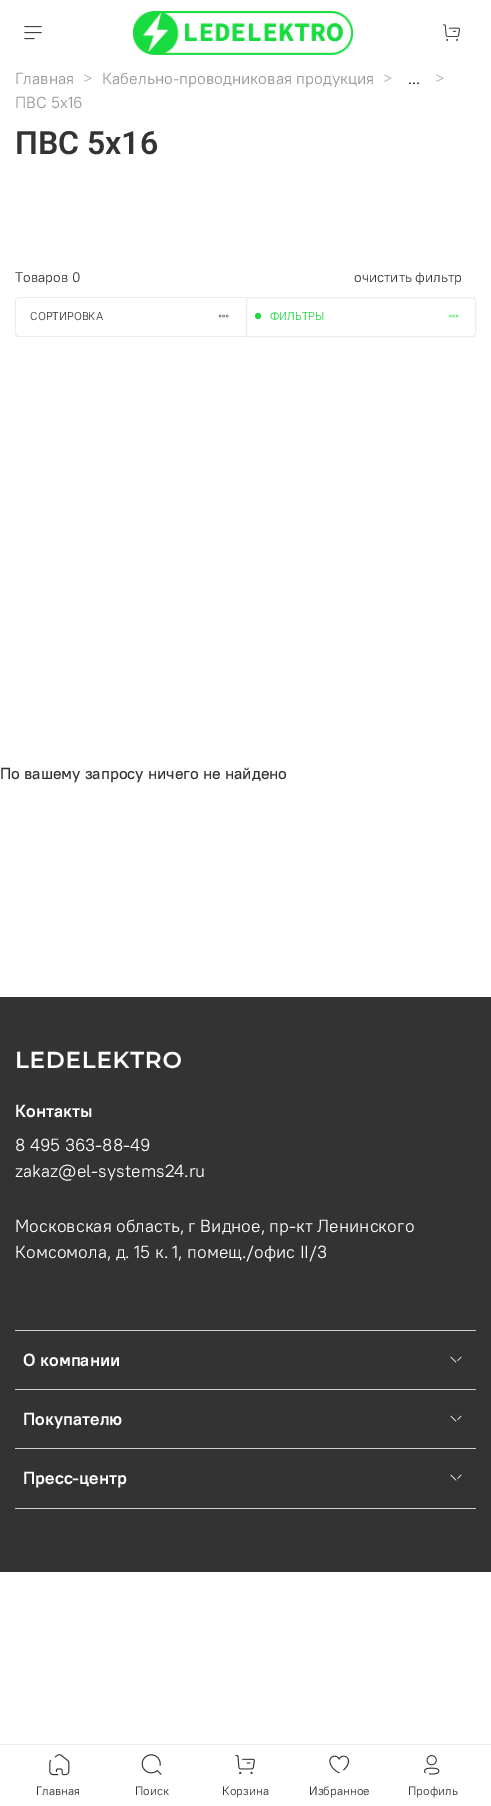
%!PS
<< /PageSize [491 1806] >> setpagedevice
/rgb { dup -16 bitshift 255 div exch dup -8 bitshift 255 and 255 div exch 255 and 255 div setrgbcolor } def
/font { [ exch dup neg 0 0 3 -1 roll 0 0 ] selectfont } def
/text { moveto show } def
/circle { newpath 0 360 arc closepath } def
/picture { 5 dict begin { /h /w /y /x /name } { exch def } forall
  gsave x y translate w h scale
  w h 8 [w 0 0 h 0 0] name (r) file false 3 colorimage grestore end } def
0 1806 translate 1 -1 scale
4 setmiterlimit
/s1 { /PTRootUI-Regular 16 font 16#999999 rgb } def
/s2 { /PTRootUI-Regular 16 font 16#B8B8B8 rgb } def
/s3 { /PTRootUI-Regular 16 font 16#000000 rgb } def
/s4 { /Roboto-SemiBold 32 font 16#333333 rgb } def
/s5 { /PTRootUI-Regular 14 font 16#333333 rgb } def
/s6 { /PTRootUI-Regular 11.25 font 16#333333 rgb } def
/s7 { /PTRootUI-Regular 11.25 font 16#18DB3F rgb } def
/s8 { /PTRootUI-Medium 16 font 16#333333 rgb } def
/s9 { /PTRootUI-Bold 17.6 font 16#FFFFFF rgb } def
/s10 { /PTRootUI-Regular 17.6 font 16#FFFFFF rgb } def
/s11 { /PTRootUI-Regular 12 font 16#333333 rgb } def
16#FFFFFF rgb
0 0 491 1806 rectfill
(pic1.raw) 24 26 18 14 picture
(pic2.raw) 133 11 220 44 picture
(pic3.raw) 443 24 17 17 picture
s1
(Главная) 15 84 text
s2
(>) 83 84 text
s1
(Кабельно-проводниковая продукция) 102 84 text
s2
(>) 383 84 text
(>) 435 84 text
s3
(...) 408 84 text
s1
(ПВС 5х16) 15 108 text
s4
(ПВС 5х16) 15 154 text
s5
(Товаров 0) 15 282 text
(очистить фильтр) 354 282 text
16#EAECF0 rgb
19 297 moveto 246 297 lineto 246 337 lineto 19 337 lineto 17 337 15 335 15 333 curveto 15 301 lineto 15 299 17 297 19 297 curveto closepath 19 298 moveto 246 298 lineto 246 336 lineto 19 336 lineto 17 336 16 335 16 333 curveto 16 301 lineto 16 299 17 298 19 298 curveto closepath eofill
s6
(СОРТИРОВКА) 30 320 text
(pic4.raw) 218 314 11 4 picture
16#EAECF0 rgb
246.5 297.5 moveto 472 297.5 lineto 474 297.5 475.5 299 475.5 301 curveto 475.5 333 lineto 475.5 335 474 336.5 472 336.5 curveto 246.5 336.5 lineto closepath stroke
16#18DB3F rgb
258 316 3 circle fill
(ФИЛЬТРЫ) 270 320 text
(pic5.raw) 448 314 11 4 picture
s8
(По вашему запросу ничего не найдено) 0 779 text
0 997 491 575 rectfill
(pic6.raw) 17 1051 164 18 picture
s9
(Контакты) 15 1117 text
s10
(8 495 363-88-49) 15 1151 text
(zakaz@el-systems24.ru) 15 1177 text
(Московская область, г Видное, пр-кт Ленинского) 15 1232 text
(Комсомола, д. 15 к. 1, помещ./офис II/3) 15 1258 text
16#CCCCCC rgb
15 1330 461 1 rectfill
s9
(О компании) 23 1366 text
(pic7.raw) 450 1356 12 7 picture
16#CCCCCC rgb
15 1389 461 1 rectfill
s9
(Покупателю) 23 1425 text
(pic7.raw) 450 1415 12 7 picture
16#CCCCCC rgb
15 1448 461 1 rectfill
15 1508 461 1 rectfill
s9
(Пресс-центр) 23 1484 text
(pic7.raw) 450 1474 12 7 picture
16#EDEDED rgb
0 1744 491 1 rectfill
(pic8.raw) 49 1754 21 22 picture
s11
(Главная) 36 1795 text
(pic9.raw) 141 1754 21 21 picture
(Поиск) 135 1795 text
(pic10.raw) 235 1754 20 20 picture
(Корзина) 222 1795 text
(pic11.raw) 329 1755 21 19 picture
(Избранное) 309 1795 text
(pic12.raw) 424 1755 16 20 picture
(Профиль) 408 1795 text
showpage
